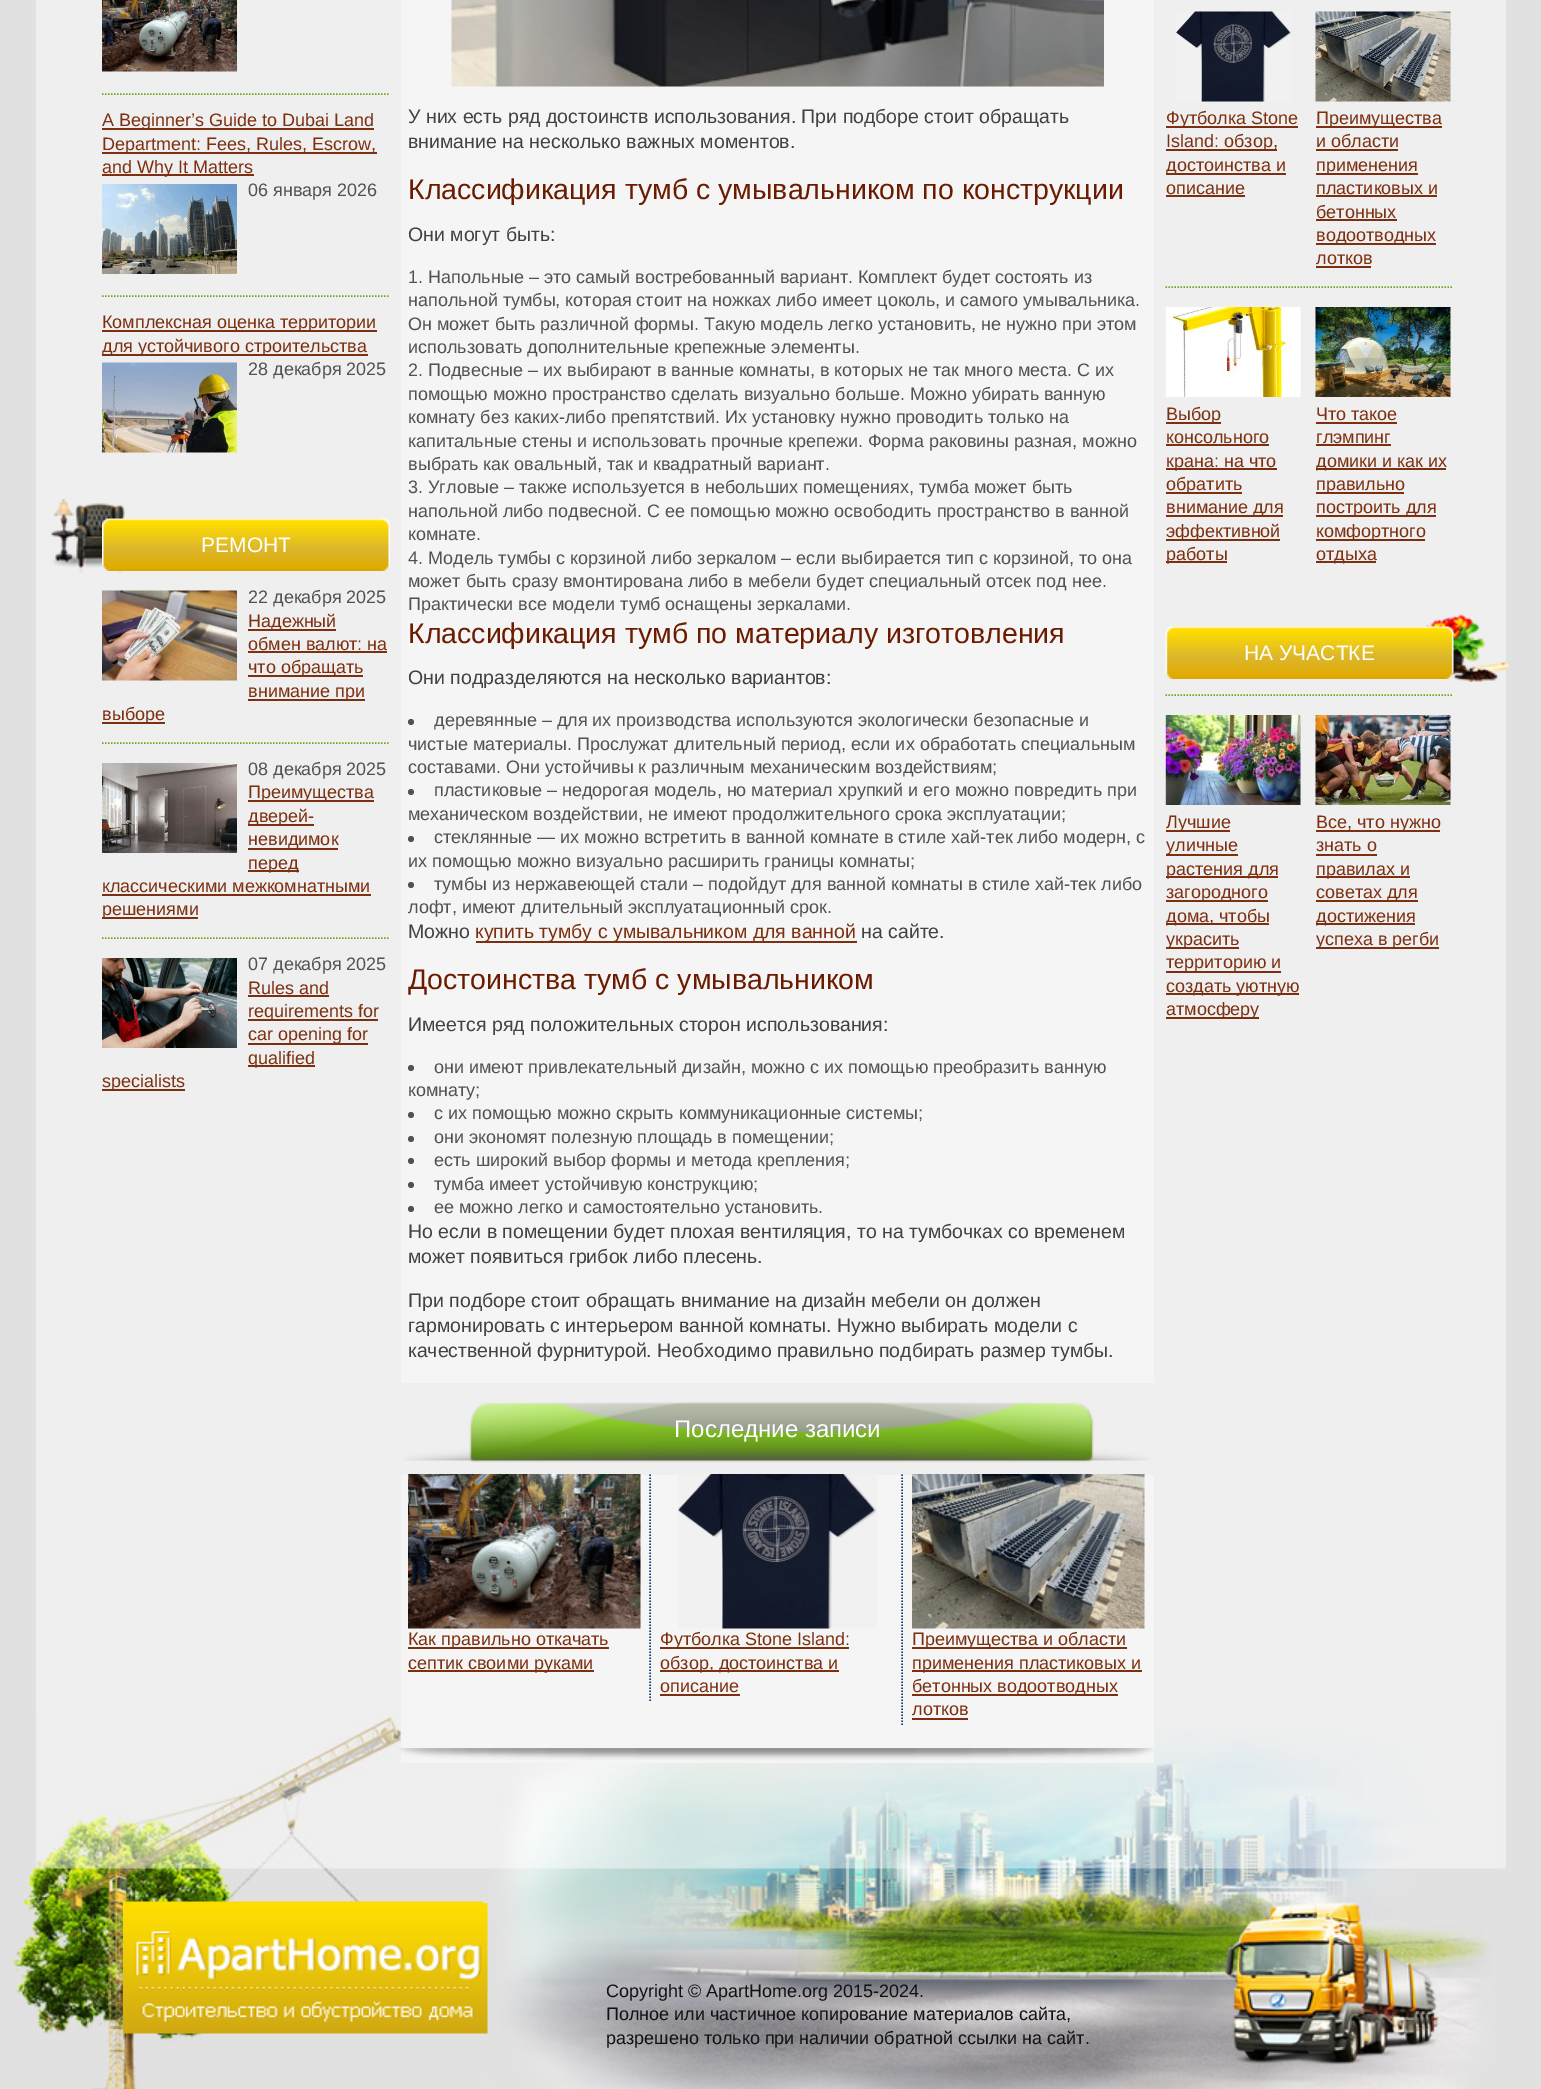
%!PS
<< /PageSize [1541 2089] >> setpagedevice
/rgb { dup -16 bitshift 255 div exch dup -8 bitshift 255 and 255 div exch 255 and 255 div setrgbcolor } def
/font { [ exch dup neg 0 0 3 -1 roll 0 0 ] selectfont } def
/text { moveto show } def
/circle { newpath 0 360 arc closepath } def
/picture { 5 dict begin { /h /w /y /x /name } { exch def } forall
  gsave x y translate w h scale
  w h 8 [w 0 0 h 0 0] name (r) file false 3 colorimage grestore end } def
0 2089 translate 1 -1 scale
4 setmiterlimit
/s1 { /LiberationSans-Regular 18 font 16#7D3010 rgb } def
/s2 { /LiberationSans-Regular 18 font 16#525252 rgb } def
/s3 { /LiberationSans-Regular 21 font 16#FFFFFF rgb } def
/s4 { /LiberationSans-Regular 19.5 font 16#424242 rgb } def
/s5 { /LiberationSans-Regular 28.5 font 16#6B1C00 rgb } def
/s6 { /LiberationSans-Regular 19.5 font 16#7D3010 rgb } def
/s7 { /LiberationSans-Regular 24 font 16#FFFFFF rgb } def
/s8 { /LiberationSans-Regular 18 font 16#111111 rgb } def
16#E1E1E1 rgb
0 0 1541 2089 rectfill
16#EFEFEF rgb
36 0 1470 1713 rectfill
(pic1.raw) 7 1713 1499 376 picture
(pic2.raw) 102 0 135 72 picture
16#6FA61D rgb
1.5 setlinewidth
[1.5 1.5] 0 setdash
102 94 moveto 390 94 lineto stroke
16#7D3010 rgb
102 128 272 2 rectfill
s1
(A Beginner’s Guide to Dubai Land) 102 126 text
102 152 275 2 rectfill
(Department: Fees, Rules, Escrow,) 102 150 text
102 174 152 2 rectfill
(and Why It Matters) 102 173 text
(pic3.raw) 102 184 135 90 picture
s2
(06 января 2026) 248 196 text
16#6FA61D rgb
102 296 moveto 390 296 lineto stroke
16#7D3010 rgb
102 330 275 2 rectfill
(Комплексная оценка территории) 102 328 text
102 354 266 2 rectfill
(для устойчивого строительства) 102 352 text
(pic4.raw) 102 362 135 91 picture
s2
(28 декабря 2025) 248 375 text
(pic5.raw) 51 499 74 75 picture
(pic6.raw) 102 518 288 53 picture
s3
(РЕМОНТ) 201 552 text
(pic7.raw) 102 590 135 91 picture
s2
(22 декабря 2025) 248 603 text
16#7D3010 rgb
248 629 88 2 rectfill
(Надежный) 248 627 text
(обмен валют: на) 248 650 text
248 651 139 2 rectfill
248 675 115 2 rectfill
(что обращать) 248 673 text
248 699 117 2 rectfill
(внимание при) 248 697 text
102 722 63 2 rectfill
(выборе) 102 720 text
16#6FA61D rgb
102 743 moveto 390 743 lineto stroke
(pic8.raw) 102 763 135 90 picture
s2
(08 декабря 2025) 248 775 text
16#7D3010 rgb
248 800 126 2 rectfill
(Преимущества) 248 798 text
248 824 66 2 rectfill
(дверей-) 248 822 text
248 848 90 2 rectfill
(невидимок) 248 845 text
248 870 51 2 rectfill
(перед) 248 869 text
(классическими межкомнатными) 102 892 text
102 894 269 2 rectfill
102 917 96 2 rectfill
(решениями) 102 915 text
16#6FA61D rgb
102 938 moveto 390 938 lineto stroke
(pic9.raw) 102 958 135 90 picture
s2
(07 декабря 2025) 248 970 text
s1
(Rules and) 248 994 text
248 995 81 2 rectfill
248 1019 130 2 rectfill
(requirements for) 248 1017 text
248 1043 120 2 rectfill
(car opening for) 248 1040 text
248 1065 67 2 rectfill
(qualified) 248 1064 text
102 1089 83 2 rectfill
(specialists) 102 1087 text
16#F5F5F5 rgb
401 0 753 1383 rectfill
(pic10.raw) 451 0 653 87 picture
s4
(У них есть ряд достоинств использования. При подборе стоит обращать) 408 123 text
(внимание на несколько важных моментов.) 408 148 text
s5
(Классификация тумб с умывальником по конструкции) 408 199 text
s4
(Они могут быть:) 408 241 text
s2
(1. Напольные – это самый востребованный вариант. Комплект будет состоять из) 408 283 text
(напольной тумбы, которая стоит на ножках либо имеет цоколь, и самого умывальника.) 408 306 text
(Он может быть различной формы. Такую модель легко установить, не нужно при этом) 408 330 text
(использовать дополнительные крепежные элементы.) 408 353 text
(2. Подвесные – их выбирают в ванные комнаты, в которых не так много места. С их) 408 376 text
(помощью можно пространство сделать визуально больше. Можно убирать ванную) 408 400 text
(комнату без каких-либо препятствий. Их установку нужно проводить только на) 408 423 text
(капитальные стены и использовать прочные крепежи. Форма раковины разная, можно) 408 447 text
(выбрать как овальный, так и квадратный вариант.) 408 470 text
(3. Угловые – также используется в небольших помещениях, тумба может быть) 408 493 text
(напольной либо подвесной. С ее помощью можно освободить пространство в ванной) 408 517 text
(комнате.) 408 540 text
(4. Модель тумбы с корзиной либо зеркалом – если выбирается тип с корзиной, то она) 408 564 text
(может быть сразу вмонтирована либо в мебели будет специальный отсек под нее.) 408 587 text
(Практически все модели тумб оснащены зеркалами.) 408 610 text
s5
(Классификация тумб по материалу изготовления) 408 643 text
s4
(Они подразделяются на несколько вариантов:) 408 684 text
16#525252 rgb
411 722 3 circle fill
s2
(деревянные – для их производства используются экологически безопасные и) 434 726 text
(чистые материалы. Прослужат длительный период, если их обработать специальным) 408 750 text
(составами. Они устойчивы к различным механическим воздействиям;) 408 773 text
411 792 3 circle fill
(пластиковые – недорогая модель, но материал хрупкий и его можно повредить при) 434 796 text
(механическом воздействии, не имеют продолжительного срока эксплуатации;) 408 820 text
411 839 3 circle fill
(стеклянные — их можно встретить в ванной комнате в стиле хай-тек либо модерн, с) 434 843 text
(их помощью можно визуально расширить границы комнаты;) 408 867 text
411 885 3 circle fill
(тумбы из нержавеющей стали – подойдут для ванной комнаты в стиле хай-тек либо) 434 890 text
(лофт, имеют длительный эксплуатационный срок.) 408 913 text
s4
(Можно) 408 938 text
16#7D3010 rgb
476 941 381 2 rectfill
(купить тумбу с умывальником для ванной) 475 938 text
s4
(на сайте.) 861 938 text
s5
(Достоинства тумб с умывальником) 408 989 text
s4
(Имеется ряд положительных сторон использования:) 408 1031 text
16#525252 rgb
411 1068 3 circle fill
s2
(они имеют привлекательный дизайн, можно с их помощью преобразить ванную) 434 1073 text
(комнату;) 408 1096 text
411 1115 3 circle fill
(с их помощью можно скрыть коммуникационные системы;) 434 1119 text
411 1139 3 circle fill
(они экономят полезную площадь в помещении;) 434 1143 text
411 1161 3 circle fill
(есть широкий выбор формы и метода крепления;) 434 1166 text
411 1185 3 circle fill
(тумба имеет устойчивую конструкцию;) 434 1190 text
411 1209 3 circle fill
(ее можно легко и самостоятельно установить.) 434 1213 text
s4
(Но если в помещении будет плохая вентиляция, то на тумбочках со временем) 408 1238 text
(может появиться грибок либо плесень.) 408 1263 text
(При подборе стоит обращать внимание на дизайн мебели он должен) 408 1307 text
(гармонировать с интерьером ванной комнаты. Нужно выбирать модели с) 408 1332 text
(качественной фурнитурой. Необходимо правильно подбирать размер тумбы.) 408 1357 text
(pic11.raw) 404 1402 746 61 picture
s7
(Последние записи) 674 1437 text
16#F5F5F5 rgb
401 1748 753 15 rectfill
(pic15.raw) 400 1747 754 13 picture
401 1475 753 273 rectfill
(pic12.raw) 408 1474 233 155 picture
16#7D3010 rgb
408 1647 201 2 rectfill
s1
(Как правильно откачать) 408 1645 text
408 1670 186 2 rectfill
(септик своими руками) 408 1669 text
16#083A6A rgb
650 1474.5 moveto 650 1702.5 lineto stroke
(pic13.raw) 678 1474 199 155 picture
16#7D3010 rgb
660 1647 189 2 rectfill
(Футболка Stone Island:) 660 1645 text
660 1670 179 2 rectfill
(обзор, достоинства и) 660 1669 text
(описание) 660 1692 text
660 1694 80 2 rectfill
16#083A6A rgb
902 1474.5 moveto 902 1725 lineto stroke
(pic14.raw) 912 1474 233 155 picture
16#7D3010 rgb
912 1647 215 2 rectfill
(Преимущества и области) 912 1645 text
912 1670 230 2 rectfill
(применения пластиковых и) 912 1669 text
912 1694 206 2 rectfill
(бетонных водоотводных) 912 1692 text
(лотков) 912 1715 text
912 1718 56 2 rectfill
(pic16.raw) 1176 11 115 91 picture
1166 126 132 2 rectfill
(Футболка Stone) 1166 124 text
1166 149 111 2 rectfill
(Island: обзор,) 1166 147 text
1166 173 120 2 rectfill
gsave
1166 8 288 264 rectclip
(достоинства и) 1166 171 text
grestore
(описание) 1166 194 text
1166 195 79 2 rectfill
(pic17.raw) 1315 11 136 91 picture
1316 126 126 2 rectfill
(Преимущества) 1316 124 text
(и области) 1316 147 text
1316 149 82 2 rectfill
1316 173 102 2 rectfill
(применения) 1316 171 text
(пластиковых и) 1316 194 text
1316 195 121 2 rectfill
(бетонных) 1316 218 text
1316 219 81 2 rectfill
1316 243 120 2 rectfill
(водоотводных) 1316 241 text
(лотков) 1316 264 text
1316 266 55 2 rectfill
16#6FA61D rgb
1165.5 287 moveto 1453.5 287 lineto stroke
(pic18.raw) 1165 307 136 90 picture
16#7D3010 rgb
1166 422 55 2 rectfill
(Выбор) 1166 420 text
(консольного) 1166 443 text
1166 444 103 2 rectfill
1166 468 111 2 rectfill
(крана: на что) 1166 467 text
1166 492 76 2 rectfill
(обратить) 1166 490 text
1166 515 117 2 rectfill
(внимание для) 1166 513 text
1166 539 114 2 rectfill
(эффективной) 1166 537 text
1166 561 61 2 rectfill
(работы) 1166 560 text
(pic19.raw) 1315 307 136 90 picture
(Что такое) 1316 420 text
1316 422 81 2 rectfill
(глэмпинг) 1316 443 text
1316 444 75 2 rectfill
1316 468 130 2 rectfill
(домики и как их) 1316 467 text
1316 492 88 2 rectfill
(правильно) 1316 490 text
1316 515 120 2 rectfill
(построить для) 1316 513 text
1316 539 109 2 rectfill
(комфортного) 1316 537 text
1316 561 60 2 rectfill
(отдыха) 1316 560 text
(pic21.raw) 1424 614 85 68 picture
(pic20.raw) 1165 626 289 53 picture
s3
(НА УЧАСТКЕ) 1244 660 text
16#6FA61D rgb
1165.5 695 moveto 1453.5 695 lineto stroke
(pic22.raw) 1165 715 136 90 picture
16#7D3010 rgb
1166 830 64 2 rectfill
s1
(Лучшие) 1166 828 text
1166 854 72 2 rectfill
(уличные) 1166 851 text
1166 876 112 2 rectfill
(растения для) 1166 875 text
1166 900 102 2 rectfill
(загородного) 1166 898 text
1166 923 103 2 rectfill
gsave
1166 696 288 326 rectclip
(дома, чтобы) 1166 922 text
grestore
1166 947 73 2 rectfill
(украсить) 1166 945 text
1166 971 115 2 rectfill
(территорию и) 1166 968 text
1166 993 133 2 rectfill
(создать уютную) 1166 992 text
1166 1017 93 2 rectfill
(атмосферу) 1166 1015 text
(pic23.raw) 1315 715 136 90 picture
1316 830 124 2 rectfill
(Все, что нужно) 1316 828 text
(знать о) 1316 851 text
1316 854 61 2 rectfill
1316 876 94 2 rectfill
(правилах и) 1316 875 text
1316 900 102 2 rectfill
(советах для) 1316 898 text
1316 923 99 2 rectfill
(достижения) 1316 922 text
1316 947 123 2 rectfill
(успеха в регби) 1316 945 text
(pic24.raw) 123 1903 365 131 picture
s8
(Copyright © ApartHome.org 2015-2024.) 606 1997 text
(Полное или частичное копирование материалов сайта,) 606 2020 text
(разрешено только при наличии обратной ссылки на сайт.) 606 2044 text
showpage
